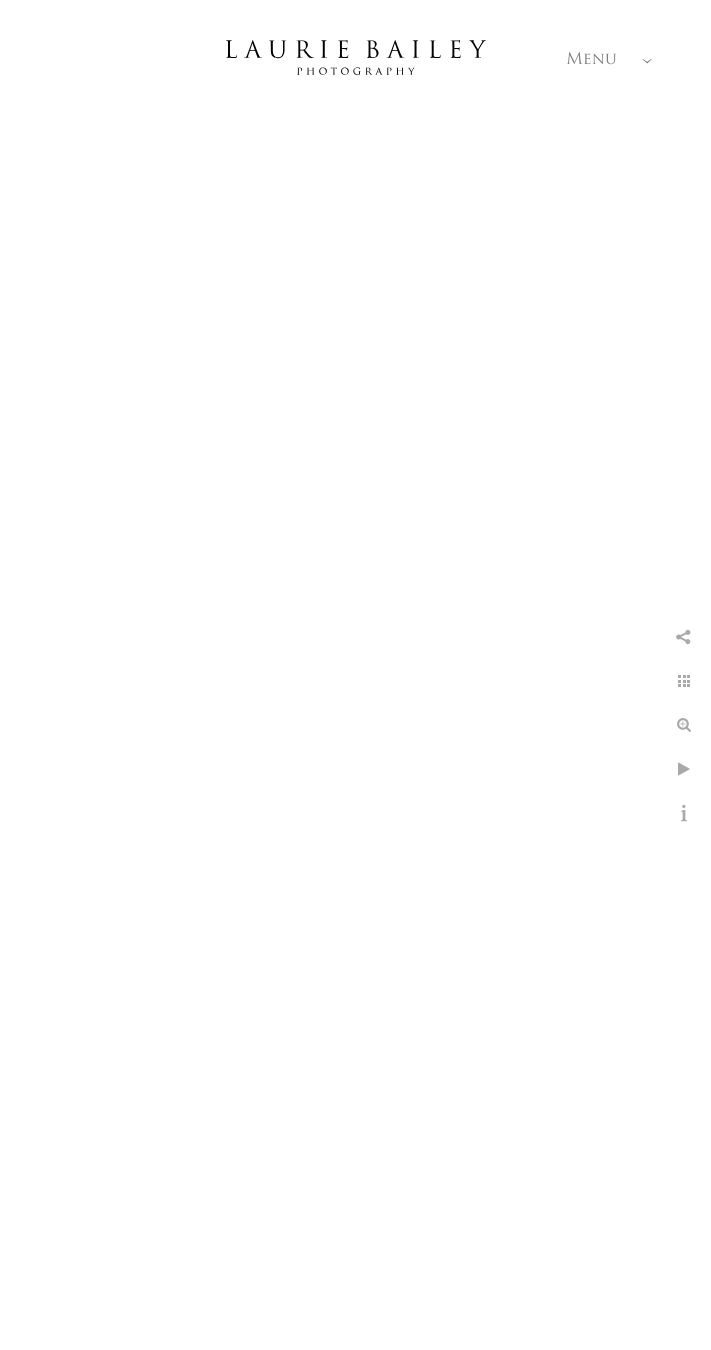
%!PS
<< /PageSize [711 1350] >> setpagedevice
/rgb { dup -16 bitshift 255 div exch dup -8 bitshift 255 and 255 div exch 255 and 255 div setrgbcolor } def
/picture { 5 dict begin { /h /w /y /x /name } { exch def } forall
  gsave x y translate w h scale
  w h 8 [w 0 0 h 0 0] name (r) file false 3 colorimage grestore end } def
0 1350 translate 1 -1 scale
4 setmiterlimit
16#FFFFFF rgb
0 0 711 1350 rectfill
(pic1.raw) 226 40 260 35 picture
(pic2.raw) 567 51 49 14 picture
(pic3.raw) 642 58 10 6 picture
(pic4.raw) 676 629 15 16 picture
(pic5.raw) 678 675 12 12 picture
(pic6.raw) 677 718 14 14 picture
(pic7.raw) 678 762 12 14 picture
(pic8.raw) 681 804 6 18 picture
showpage
